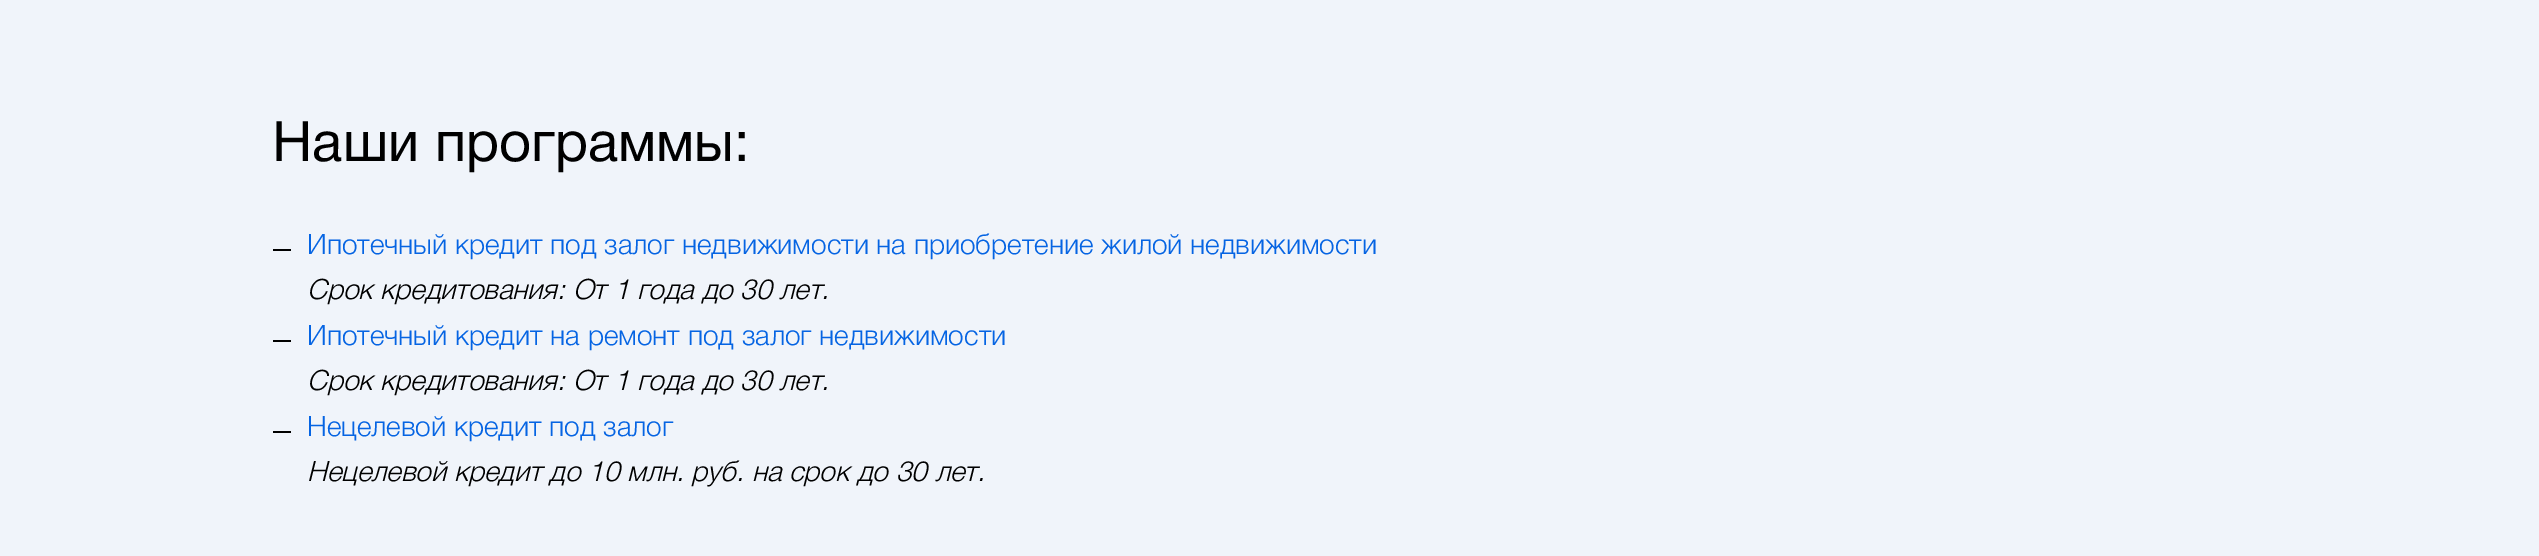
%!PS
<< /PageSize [2539 556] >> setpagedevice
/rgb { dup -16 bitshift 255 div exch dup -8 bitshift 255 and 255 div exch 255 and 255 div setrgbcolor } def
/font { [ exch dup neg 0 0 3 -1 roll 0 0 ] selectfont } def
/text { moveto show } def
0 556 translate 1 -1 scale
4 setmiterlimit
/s1 { /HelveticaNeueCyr-Regular 56 font 16#000000 rgb } def
/s2 { /HelveticaNeueCyr-Light 28 font 16#0564E3 rgb } def
/s3 { /HelveticaNeueCyr-LightItalic 28 font 16#000000 rgb } def
16#F0F4FA rgb
0 0 2539 556 rectfill
s1
(Наши программы:) 272 161 text
273 249 18 2 rectfill
s2
(Ипотечный кредит под залог недвижимости на приобретение жилой недвижимости) 307 254 text
s3
(Срок кредитования: От 1 года до 30 лет.) 307 299 text
273 340 18 2 rectfill
s2
(Ипотечный кредит на ремонт под залог недвижимости) 307 345 text
s3
(Срок кредитования: От 1 года до 30 лет.) 307 390 text
273 431 18 2 rectfill
s2
(Нецелевой кредит под залог) 307 436 text
s3
(Нецелевой кредит до 10 млн. руб. на срок до 30 лет.) 307 481 text
showpage
